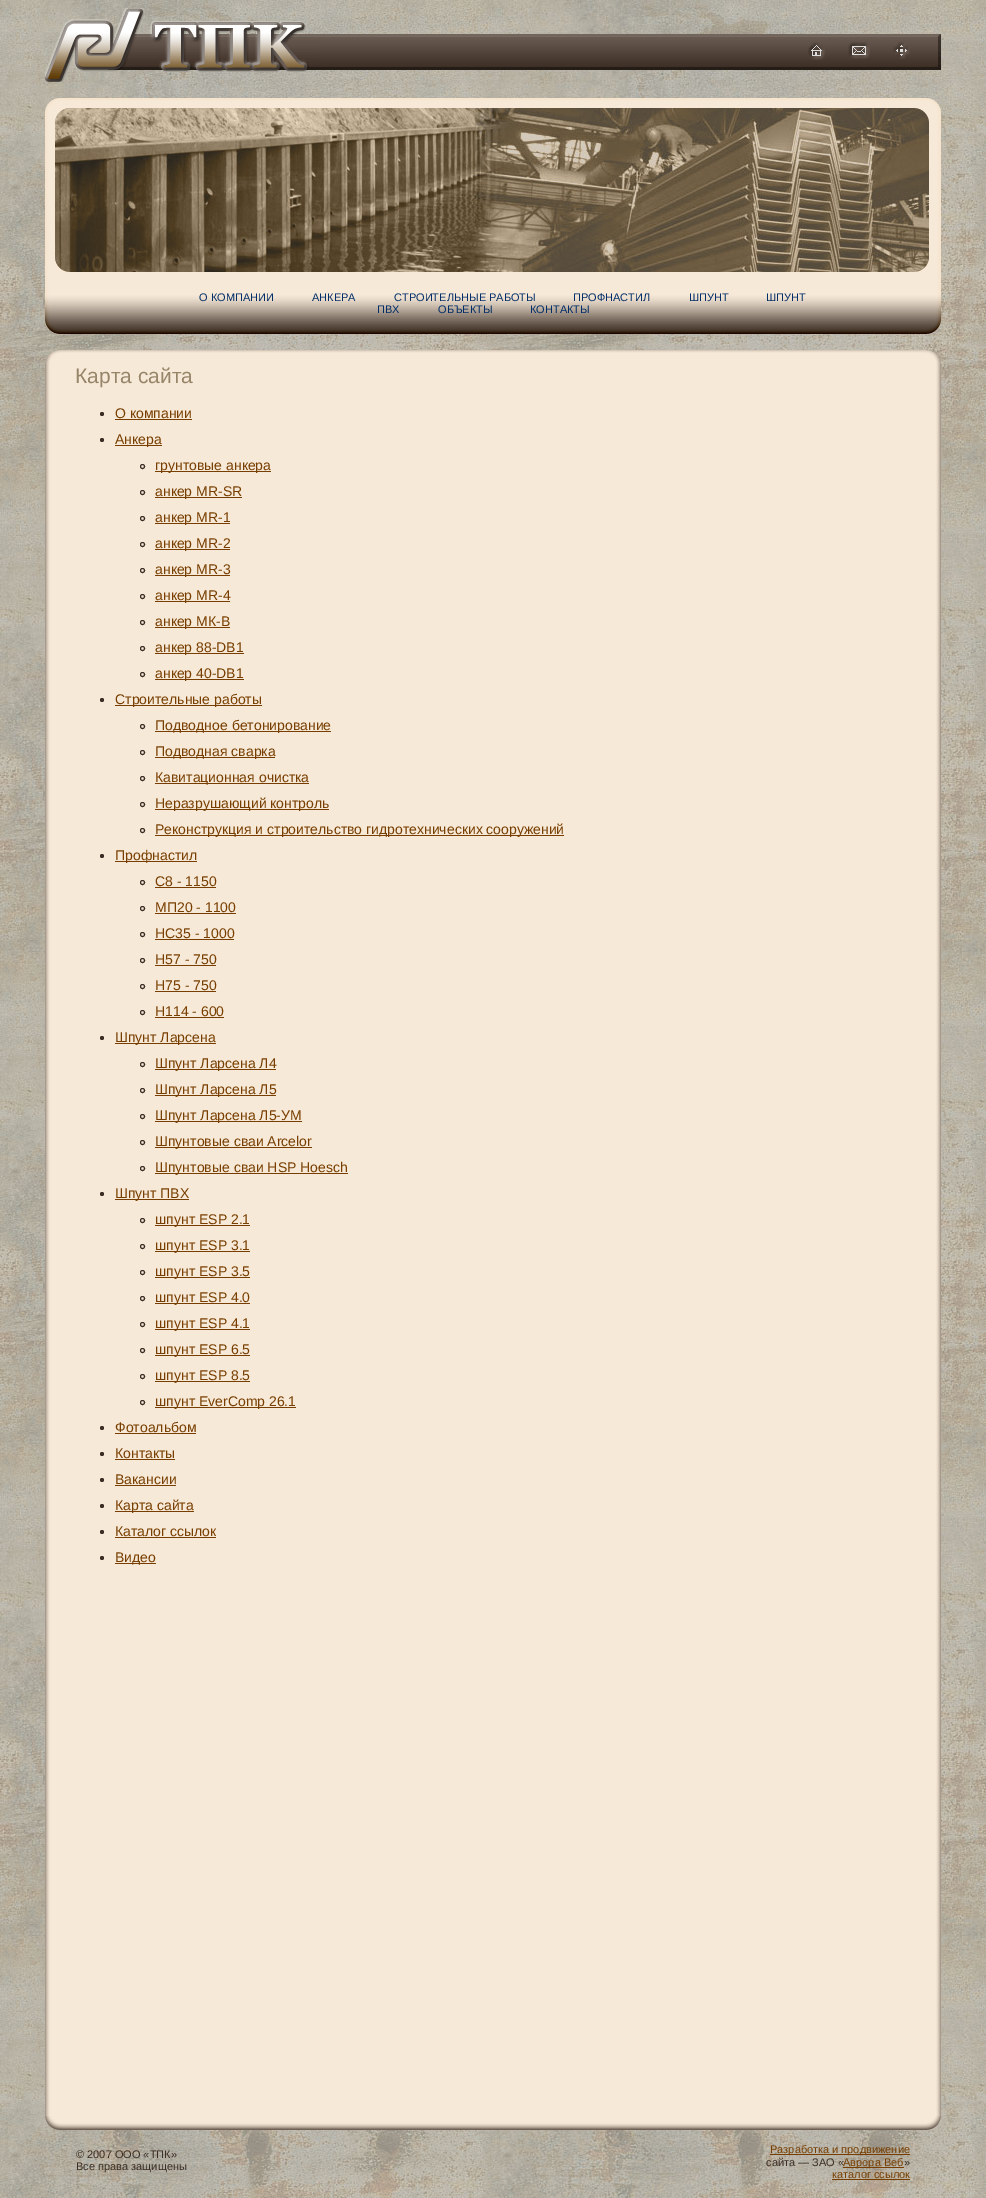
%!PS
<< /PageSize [986 2198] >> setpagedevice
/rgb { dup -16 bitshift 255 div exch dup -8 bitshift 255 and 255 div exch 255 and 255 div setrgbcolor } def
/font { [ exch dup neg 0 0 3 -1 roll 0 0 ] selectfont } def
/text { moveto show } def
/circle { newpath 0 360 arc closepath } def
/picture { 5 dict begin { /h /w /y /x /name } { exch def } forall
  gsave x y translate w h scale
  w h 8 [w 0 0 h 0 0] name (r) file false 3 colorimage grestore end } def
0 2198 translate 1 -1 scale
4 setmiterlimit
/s1 { /LiberationSans-Regular 11 font 16#002D68 rgb } def
/s2 { /LiberationSans-Regular 21 font 16#97856A rgb } def
/s3 { /LiberationSans-Regular 14 font 16#773E00 rgb } def
/s4 { /LiberationSans-Regular 11 font 16#3B2D23 rgb } def
/s5 { /LiberationSans-Regular 11 font 16#773E00 rgb } def
16#FFFFFF rgb
0 0 986 2198 rectfill
(pic1.raw) 0 0 986 2198 picture
(pic2.raw) 45 8 273 74 picture
(pic3.raw) 318 34 623 36 picture
(pic4.raw) 808 42 17 18 picture
(pic5.raw) 848 42 22 17 picture
(pic6.raw) 893 42 17 17 picture
(pic7.raw) 938 34 3 33 picture
(pic8.raw) 45 99 10 173 picture
(pic9.raw) 55 98 874 174 picture
(pic10.raw) 929 98 12 174 picture
(pic11.raw) 45 272 27 62 picture
(pic12.raw) 72 272 842 62 picture
s1
(О КОМПАНИИ) 199 301 text
(АНКЕРА) 312 301 text
(СТРОИТЕЛЬНЫЕ РАБОТЫ) 394 301 text
(ПРОФНАСТИЛ) 573 301 text
(ШПУНТ) 689 301 text
(ШПУНТ) 766 301 text
(ПВХ) 377 313 text
(ОБЪЕКТЫ) 438 313 text
(КОНТАКТЫ) 530 313 text
(pic13.raw) 914 272 27 62 picture
(pic14.raw) 45 350 896 14 picture
(pic15.raw) 45 364 896 1752 picture
s2
(Карта сайта) 75 383 text
16#3B2D23 rgb
102 414 2 circle fill
s3
(О компании) 115 418 text
115 419 77 1 rectfill
16#3B2D23 rgb
102 440 2 circle fill
16#773E00 rgb
115 445 47 1 rectfill
(Анкера) 115 444 text
16#3B2D23 rgb
142.5 466.5 2 circle stroke
16#773E00 rgb
155 471 116 1 rectfill
(грунтовые анкера) 155 470 text
16#3B2D23 rgb
142.5 492.5 2 circle stroke
16#773E00 rgb
155 497 87 1 rectfill
(анкер MR-SR) 155 496 text
16#3B2D23 rgb
142.5 518.5 2 circle stroke
16#773E00 rgb
155 523 75 1 rectfill
(анкер MR-1) 155 522 text
16#3B2D23 rgb
142.5 544.5 2 circle stroke
16#773E00 rgb
155 549 75 1 rectfill
(анкер MR-2) 155 548 text
16#3B2D23 rgb
142.5 570.5 2 circle stroke
16#773E00 rgb
155 575 75 1 rectfill
(анкер MR-3) 155 574 text
16#3B2D23 rgb
142.5 596.5 2 circle stroke
16#773E00 rgb
155 601 75 1 rectfill
(анкер MR-4) 155 600 text
16#3B2D23 rgb
142.5 622.5 2 circle stroke
16#773E00 rgb
155 627 75 1 rectfill
(анкер МК-В) 155 626 text
16#3B2D23 rgb
142.5 648.5 2 circle stroke
16#773E00 rgb
155 653 89 1 rectfill
(анкер 88-DB1) 155 652 text
16#3B2D23 rgb
142.5 674.5 2 circle stroke
16#773E00 rgb
155 679 89 1 rectfill
(анкер 40-DB1) 155 678 text
16#3B2D23 rgb
102 700 2 circle fill
16#773E00 rgb
115 705 147 1 rectfill
(Строительные работы) 115 704 text
16#3B2D23 rgb
142.5 726.5 2 circle stroke
16#773E00 rgb
155 731 176 1 rectfill
(Подводное бетонирование) 155 730 text
16#3B2D23 rgb
142.5 752.5 2 circle stroke
16#773E00 rgb
155 757 120 1 rectfill
(Подводная сварка) 155 756 text
16#3B2D23 rgb
142.5 778.5 2 circle stroke
16#773E00 rgb
155 783 154 1 rectfill
(Кавитационная очистка) 155 782 text
16#3B2D23 rgb
142.5 804.5 2 circle stroke
16#773E00 rgb
155 809 174 1 rectfill
(Неразрушающий контроль) 155 808 text
16#3B2D23 rgb
142.5 830.5 2 circle stroke
16#773E00 rgb
155 835 409 1 rectfill
(Реконструкция и строительство гидротехнических сооружений) 155 834 text
16#3B2D23 rgb
102 856 2 circle fill
16#773E00 rgb
115 861 82 1 rectfill
(Профнастил) 115 860 text
16#3B2D23 rgb
142.5 882.5 2 circle stroke
s3
(С8 - 1150) 155 886 text
155 887 61 1 rectfill
16#3B2D23 rgb
142.5 908.5 2 circle stroke
s3
(МП20 - 1100) 155 912 text
155 913 81 1 rectfill
16#3B2D23 rgb
142.5 934.5 2 circle stroke
s3
(НС35 - 1000) 155 938 text
155 939 79 1 rectfill
16#3B2D23 rgb
142.5 960.5 2 circle stroke
s3
(Н57 - 750) 155 964 text
155 965 61 1 rectfill
16#3B2D23 rgb
142.5 986.5 2 circle stroke
s3
(Н75 - 750) 155 990 text
155 991 61 1 rectfill
16#3B2D23 rgb
142.5 1012.5 2 circle stroke
s3
(Н114 - 600) 155 1016 text
155 1017 69 1 rectfill
16#3B2D23 rgb
102 1038 2 circle fill
16#773E00 rgb
115 1043 101 1 rectfill
(Шпунт Ларсена) 115 1042 text
16#3B2D23 rgb
142.5 1064.5 2 circle stroke
16#773E00 rgb
155 1069 121 1 rectfill
(Шпунт Ларсена Л4) 155 1068 text
16#3B2D23 rgb
142.5 1090.5 2 circle stroke
16#773E00 rgb
155 1095 121 1 rectfill
(Шпунт Ларсена Л5) 155 1094 text
16#3B2D23 rgb
142.5 1116.5 2 circle stroke
16#773E00 rgb
155 1121 147 1 rectfill
(Шпунт Ларсена Л5-УМ) 155 1120 text
16#3B2D23 rgb
142.5 1142.5 2 circle stroke
16#773E00 rgb
155 1147 157 1 rectfill
(Шпунтовые сваи Arcelor) 155 1146 text
16#3B2D23 rgb
142.5 1168.5 2 circle stroke
16#773E00 rgb
155 1173 193 1 rectfill
(Шпунтовые сваи HSP Hoesch) 155 1172 text
16#3B2D23 rgb
102 1194 2 circle fill
16#773E00 rgb
115 1199 74 1 rectfill
(Шпунт ПВХ) 115 1198 text
16#3B2D23 rgb
142.5 1220.5 2 circle stroke
16#773E00 rgb
155 1225 95 1 rectfill
(шпунт ESP 2.1) 155 1224 text
16#3B2D23 rgb
142.5 1246.5 2 circle stroke
16#773E00 rgb
155 1251 95 1 rectfill
(шпунт ESP 3.1) 155 1250 text
16#3B2D23 rgb
142.5 1272.5 2 circle stroke
16#773E00 rgb
155 1277 95 1 rectfill
(шпунт ESP 3.5) 155 1276 text
16#3B2D23 rgb
142.5 1298.5 2 circle stroke
16#773E00 rgb
155 1303 95 1 rectfill
(шпунт ESP 4.0) 155 1302 text
16#3B2D23 rgb
142.5 1324.5 2 circle stroke
16#773E00 rgb
155 1329 95 1 rectfill
(шпунт ESP 4.1) 155 1328 text
16#3B2D23 rgb
142.5 1350.5 2 circle stroke
16#773E00 rgb
155 1355 95 1 rectfill
(шпунт ESP 6.5) 155 1354 text
16#3B2D23 rgb
142.5 1376.5 2 circle stroke
16#773E00 rgb
155 1381 95 1 rectfill
(шпунт ESP 8.5) 155 1380 text
16#3B2D23 rgb
142.5 1402.5 2 circle stroke
16#773E00 rgb
155 1407 141 1 rectfill
(шпунт EverComp 26.1) 155 1406 text
16#3B2D23 rgb
102 1428 2 circle fill
s3
(Фотоальбом) 115 1432 text
115 1433 81 1 rectfill
16#3B2D23 rgb
102 1454 2 circle fill
s3
(Контакты) 115 1458 text
115 1459 60 1 rectfill
16#3B2D23 rgb
102 1480 2 circle fill
s3
(Вакансии) 115 1484 text
115 1485 61 1 rectfill
16#3B2D23 rgb
102 1506 2 circle fill
16#773E00 rgb
115 1511 79 1 rectfill
(Карта сайта) 115 1510 text
16#3B2D23 rgb
102 1532 2 circle fill
s3
(Каталог ссылок) 115 1536 text
115 1537 101 1 rectfill
16#3B2D23 rgb
102 1558 2 circle fill
16#773E00 rgb
115 1563 41 1 rectfill
(Видео) 115 1562 text
(pic16.raw) 45 2116 896 14 picture
s4
(© 2007 OOО «ТПК») 76 2158 text
(Все права защищены) 76 2170 text
16#773E00 rgb
770 2154 140 1 rectfill
(Разработка и продвижение) 770 2153 text
s4
(сайта — ЗАО «) 766 2166 text
16#773E00 rgb
843 2167 61 1 rectfill
(Аврора Веб) 843 2166 text
s4
(») 904 2166 text
s5
(каталог ссылок) 832 2178 text
832 2179 78 1 rectfill
showpage
